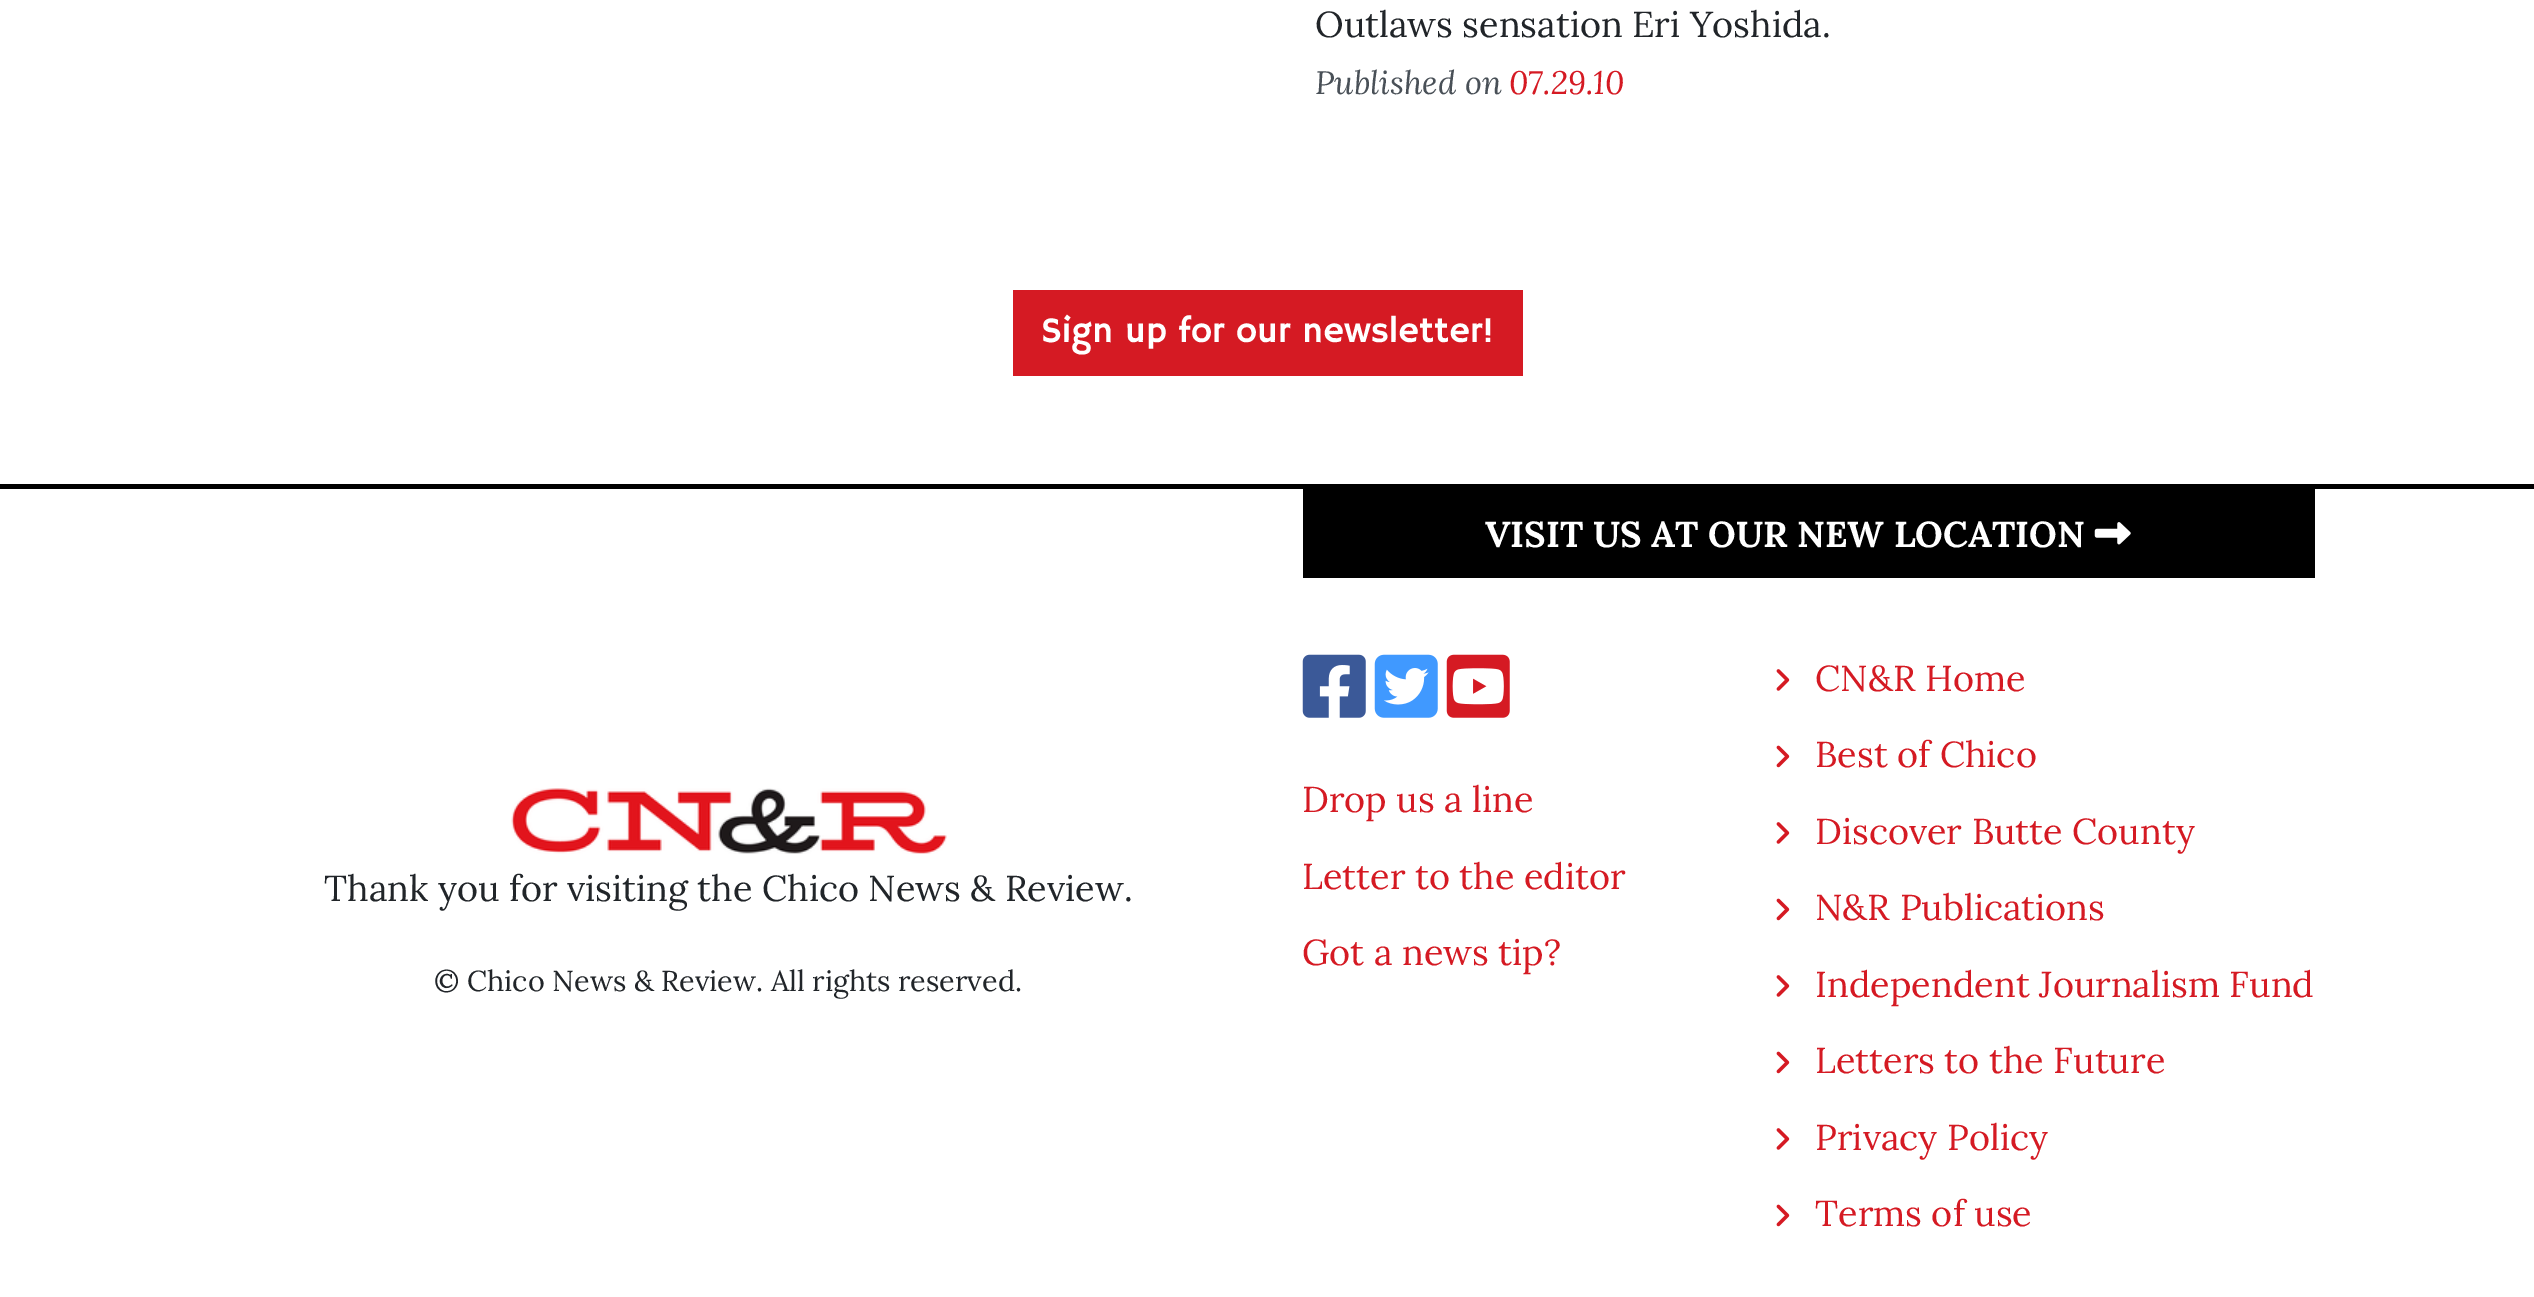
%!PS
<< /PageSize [2534 1297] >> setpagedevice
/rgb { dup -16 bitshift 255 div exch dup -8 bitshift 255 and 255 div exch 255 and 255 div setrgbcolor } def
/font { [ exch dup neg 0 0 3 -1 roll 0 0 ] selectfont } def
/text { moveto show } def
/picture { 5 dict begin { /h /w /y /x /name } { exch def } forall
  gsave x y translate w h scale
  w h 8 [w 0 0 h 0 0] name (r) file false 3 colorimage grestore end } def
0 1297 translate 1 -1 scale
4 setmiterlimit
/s1 { /Lora-Regular 36 font 16#212529 rgb } def
/s2 { /Lora-Italic 32.5 font 16#495057 rgb } def
/s3 { /Lora-Italic 32.5 font 16#D51A23 rgb } def
/s4 { /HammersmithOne-Regular 36 font 16#FFFFFF rgb } def
/s5 { /Lora-Regular 28.8 font 16#212529 rgb } def
/s6 { /Lora-Bold 36 font 16#FFFFFF rgb } def
/s7 { /Lora-Regular 36 font 16#D51A23 rgb } def
16#FFFFFF rgb
0 0 2534 1297 rectfill
s1
(Outlaws sensation Eri Yoshida.) 1315 37 text
s2
(Published on) 1315 94 text
s3
(07.29.10) 1509 94 text
1013 290 510 86 rectfill
s4
(Sign up for our newsletter!) 1041 342 text
16#000000 rgb
0 484 2534 5 rectfill
(pic1.raw) 511 788 436 66 picture
s1
(Thank you for visiting the Chico News & Review.) 324 901 text
s5
(© Chico News & Review. All rights reserved.) 434 991 text
16#000000 rgb
1303 489 1012 89 rectfill
s6
(VISIT US AT OUR NEW LOCATION) 1485 547 text
(pic2.raw) 2094 522 37 23 picture
(pic3.raw) 1302 654 64 64 picture
(pic4.raw) 1374 654 64 64 picture
(pic5.raw) 1446 654 64 64 picture
s7
(Drop us a line) 1302 812 text
(Letter to the editor) 1302 889 text
(Got a news tip?) 1302 965 text
(pic6.raw) 1776 669 14 22 picture
(CN&R Home) 1815 691 text
(pic7.raw) 1776 745 14 23 picture
(Best of Chico) 1815 767 text
(pic6.raw) 1776 822 14 22 picture
(Discover Butte County) 1815 844 text
(pic7.raw) 1776 898 14 23 picture
(N&R Publications) 1815 920 text
(pic6.raw) 1776 975 14 22 picture
(Independent Journalism Fund) 1815 997 text
(pic7.raw) 1776 1051 14 23 picture
(Letters to the Future) 1815 1073 text
(pic6.raw) 1776 1128 14 22 picture
(Privacy Policy) 1815 1150 text
(pic7.raw) 1776 1204 14 23 picture
(Terms of use) 1815 1226 text
showpage
